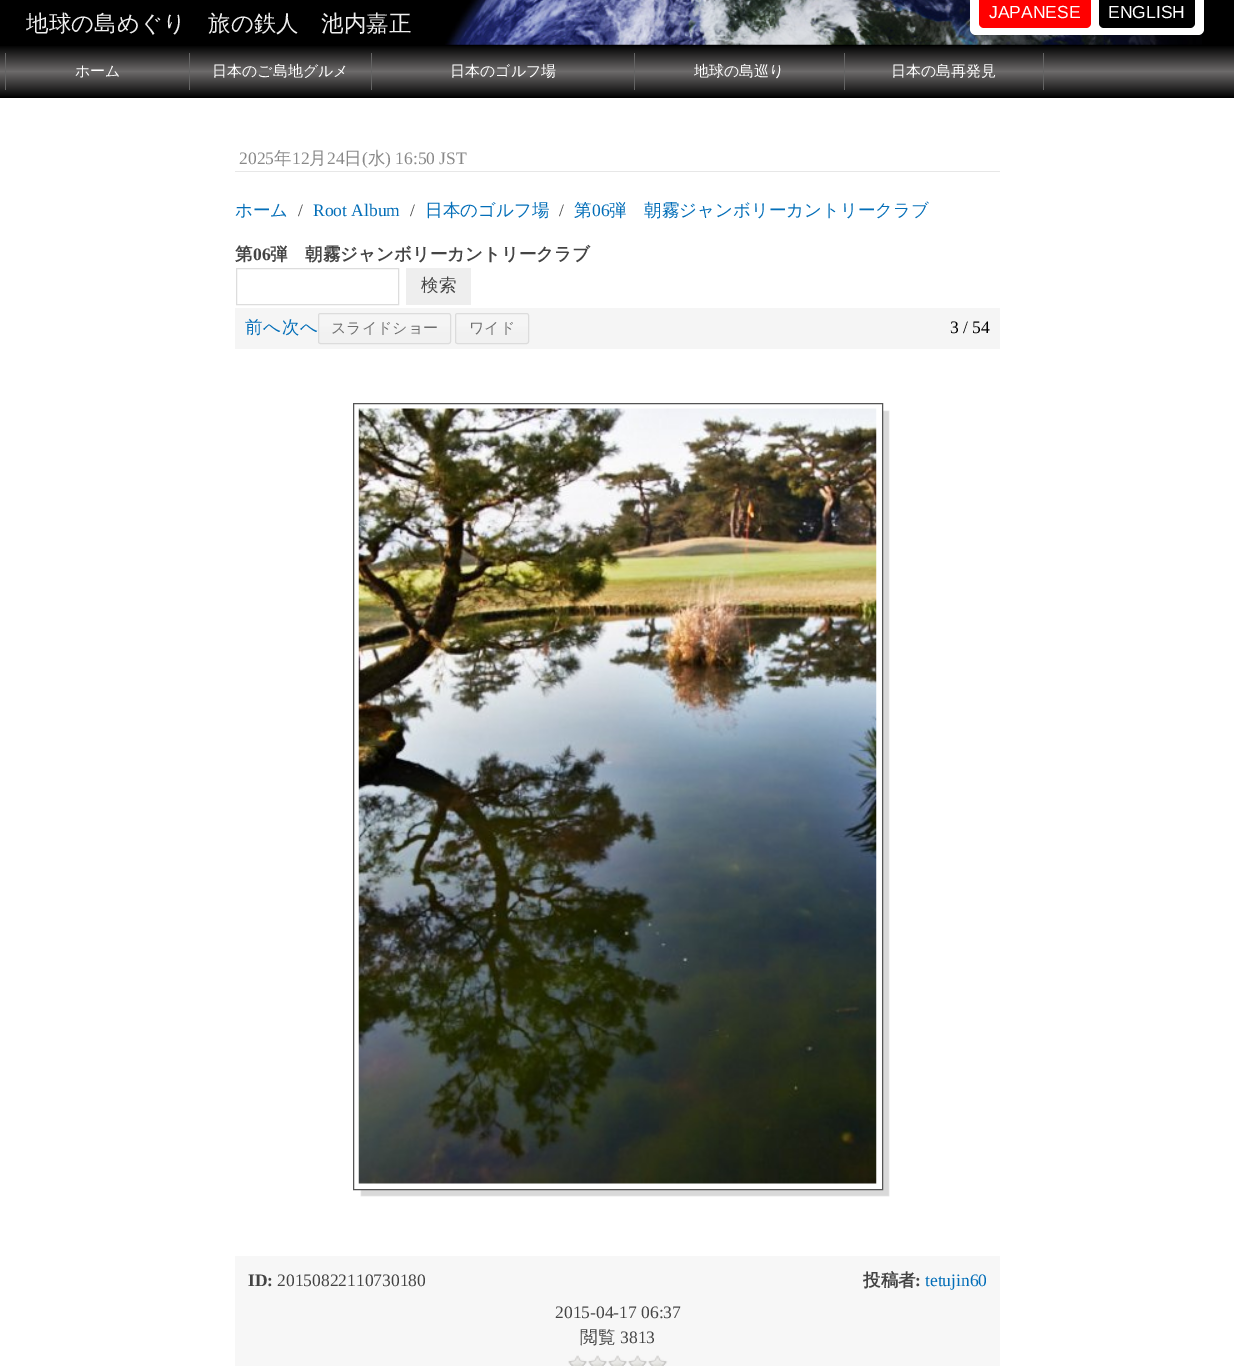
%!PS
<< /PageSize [1234 1366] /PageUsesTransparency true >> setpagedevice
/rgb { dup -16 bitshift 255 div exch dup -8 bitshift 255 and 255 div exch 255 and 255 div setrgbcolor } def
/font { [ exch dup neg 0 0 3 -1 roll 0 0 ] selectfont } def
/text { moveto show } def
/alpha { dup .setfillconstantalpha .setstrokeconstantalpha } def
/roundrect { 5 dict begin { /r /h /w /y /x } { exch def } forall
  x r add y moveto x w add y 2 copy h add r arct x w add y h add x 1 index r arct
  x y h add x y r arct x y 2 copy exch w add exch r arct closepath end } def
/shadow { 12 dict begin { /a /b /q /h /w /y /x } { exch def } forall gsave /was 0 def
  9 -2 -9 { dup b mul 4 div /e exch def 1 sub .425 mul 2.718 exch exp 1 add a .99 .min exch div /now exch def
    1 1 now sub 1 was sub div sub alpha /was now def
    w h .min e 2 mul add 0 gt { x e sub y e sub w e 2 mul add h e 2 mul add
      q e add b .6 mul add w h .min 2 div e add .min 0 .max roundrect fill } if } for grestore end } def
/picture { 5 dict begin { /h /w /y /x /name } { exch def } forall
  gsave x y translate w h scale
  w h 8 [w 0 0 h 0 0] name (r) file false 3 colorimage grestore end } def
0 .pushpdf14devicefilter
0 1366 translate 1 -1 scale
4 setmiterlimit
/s1 { /WenQuanYiZenHei-Medium 22.5 font 16#EEEEEE rgb } def
/s2 { /LiberationSans-Regular 17.5 font 16#FFFFFF rgb } def
/s3 { /WenQuanYiZenHei-Medium 15 font 16#FFFFFF rgb } def
/s4 { /LiberationSerif-Regular 17.5 font 16#888888 rgb } def
/s5 { /WenQuanYiZenHei-Medium 17.5 font 16#888888 rgb } def
/s6 { /WenQuanYiZenHei-Medium 17.5 font 16#036EB8 rgb } def
/s7 { /LiberationSerif-Regular 17.5 font 16#444444 rgb } def
/s8 { /LiberationSerif-Regular 17.5 font 16#036EB8 rgb } def
/s9 { /WenQuanYiZenHei-Bold 17.5 font 16#444444 rgb } def
/s10 { /LiberationSerif-Bold 17.5 font 16#444444 rgb } def
/s11 { /WenQuanYiZenHei-Medium 17.5 font 16#444444 rgb } def
/s12 { /WenQuanYiZenHei-Medium 15 font 16#6E6E6E rgb } def
/s13 { /LiberationSerif-Regular 17.5 font 16#000000 rgb } def
16#000000 rgb
0 0 1234 1366 rectfill
(pic1.raw) 445 0 757 45 picture
s1
(地球の島めぐり　旅の鉄人　池内嘉正) 26 31 text
16#FFFFFF rgb
970 -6 234 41 6 roundrect fill
16#FF0000 rgb
979 -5 112 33 5 roundrect fill
s2
(JAPANESE) 989 18 text
16#000000 rgb
1099 -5 96 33 5 roundrect fill
s2
(ENGLISH) 1108 18 text
gsave 0 46 moveto 1234 46 lineto 1234 97 lineto 0 97 lineto closepath clip newpath
<< /ShadingType 2 /ColorSpace /DeviceRGB /Coords [618 45 618 98] /Extend [true true] /Function << /FunctionType 3 /Domain [0 1] /Functions [<< /FunctionType 2 /Domain [0 1] /C0 [0 0 0] /C1 [0.427 0.42 0.42] /N 1 >> << /FunctionType 2 /Domain [0 1] /C0 [0.427 0.42 0.42] /C1 [0 0 0] /N 1 >>] /Bounds [0.5] /Encode [0 1 0 1] >> >> shfill grestore
16#636363 rgb
5 53 1 37 rectfill
s3
(ホーム) 75 76 text
16#636363 rgb
371 53 1 37 rectfill
189 53 1 37 rectfill
s3
(日本のご島地グルメ) 212 76 text
16#636363 rgb
634 53 1 37 rectfill
s3
(日本のゴルフ場) 450 76 text
(地球の島巡り) 694 76 text
16#636363 rgb
1043 53 1 37 rectfill
844 53 1 37 rectfill
s3
(日本の島再発見) 891 76 text
0 98 1234 1268 rectfill
16#E7E7E7 rgb
235 171 765 1 rectfill
s4
(2025) 239 164 text
s5
(年) 274 164 text
s4
(12) 292 164 text
s5
(月) 309 164 text
s4
(24) 327 164 text
s5
(日) 344 164 text
s4
(\() 362 164 text
s5
(水) 368 164 text
s4
(\) 16:50 JST) 385 164 text
s6
(ホーム) 235 216 text
s7
(/) 298 216 text
s8
(Root Album) 313 216 text
s7
(/) 410 216 text
s6
(日本のゴルフ場) 425 216 text
s7
(/) 559 216 text
s6
(第) 574 216 text
s8
(06) 592 216 text
s6
(弾　朝霧ジャンボリーカントリークラブ) 609 216 text
s9
(第) 235 260 text
s10
(06) 253 260 text
s9
(弾　朝霧ジャンボリーカントリークラブ) 270 260 text
16#DDDDDD rgb
236.5 268.5 162 36 rectstroke
16#EEEEEE rgb
406 268 65 37 rectfill
s11
(検索) 421 291 text
16#F5F5F5 rgb
235 308 765 41 rectfill
s6
(前へ) 245 333 text
(次へ) 282 333 text
gsave
318 313 133 31 2.5 roundrect clip newpath
gsave 318 314 moveto 451 314 lineto 451 343 lineto 318 343 lineto closepath clip newpath
<< /ShadingType 2 /ColorSpace /DeviceRGB /Coords [319 325 319 334] /Extend [true true] /Function << /FunctionType 2 /Domain [0 1] /C0 [0.961 0.961 0.961] /C1 [0.945 0.945 0.945] /N 1 >> >> shfill grestore
grestore
16#DCDCDC rgb
318.5 313.5 132 30 2 roundrect stroke
s12
(スライドショー) 331 333 text
gsave
455 313 74 31 2.5 roundrect clip newpath
gsave 455 314 moveto 529 314 lineto 529 343 lineto 455 343 lineto closepath clip newpath
<< /ShadingType 2 /ColorSpace /DeviceRGB /Coords [456 325 456 334] /Extend [true true] /Function << /FunctionType 2 /Domain [0 1] /C0 [0.961 0.961 0.961] /C1 [0.945 0.945 0.945] /N 1 >> >> shfill grestore
grestore
16#DCDCDC rgb
455.5 313.5 73 30 2 roundrect stroke
s12
(ワイド) 469 333 text
s13
(3 / 54) 950 333 text
361 411 528 785 0 0.5 0.15 shadow
16#FFFFFF rgb
360 410 522 779 rectfill
16#555555 rgb
353.5 403.5 529 786 rectstroke
(pic2.raw) 358 408 519 776 picture
16#F7F7F7 rgb
235 1256 765 110 rectfill
s10
(ID:) 248 1286 text
s7
(20150822110730180) 277 1286 text
s9
(投稿者) 863 1286 text
s10
(:) 915 1286 text
s8
(tetujin60) 925 1286 text
s7
(2015-04-17 06:37) 555 1318 text
s11
(閲覧) 580 1343 text
s7
(3813) 620 1343 text
(pic3.raw) 568 1355 20 11 picture
(pic3.raw) 588 1355 20 11 picture
(pic4.raw) 608 1355 20 11 picture
(pic4.raw) 628 1355 20 11 picture
(pic4.raw) 648 1355 20 11 picture
.poppdf14devicefilter showpage
